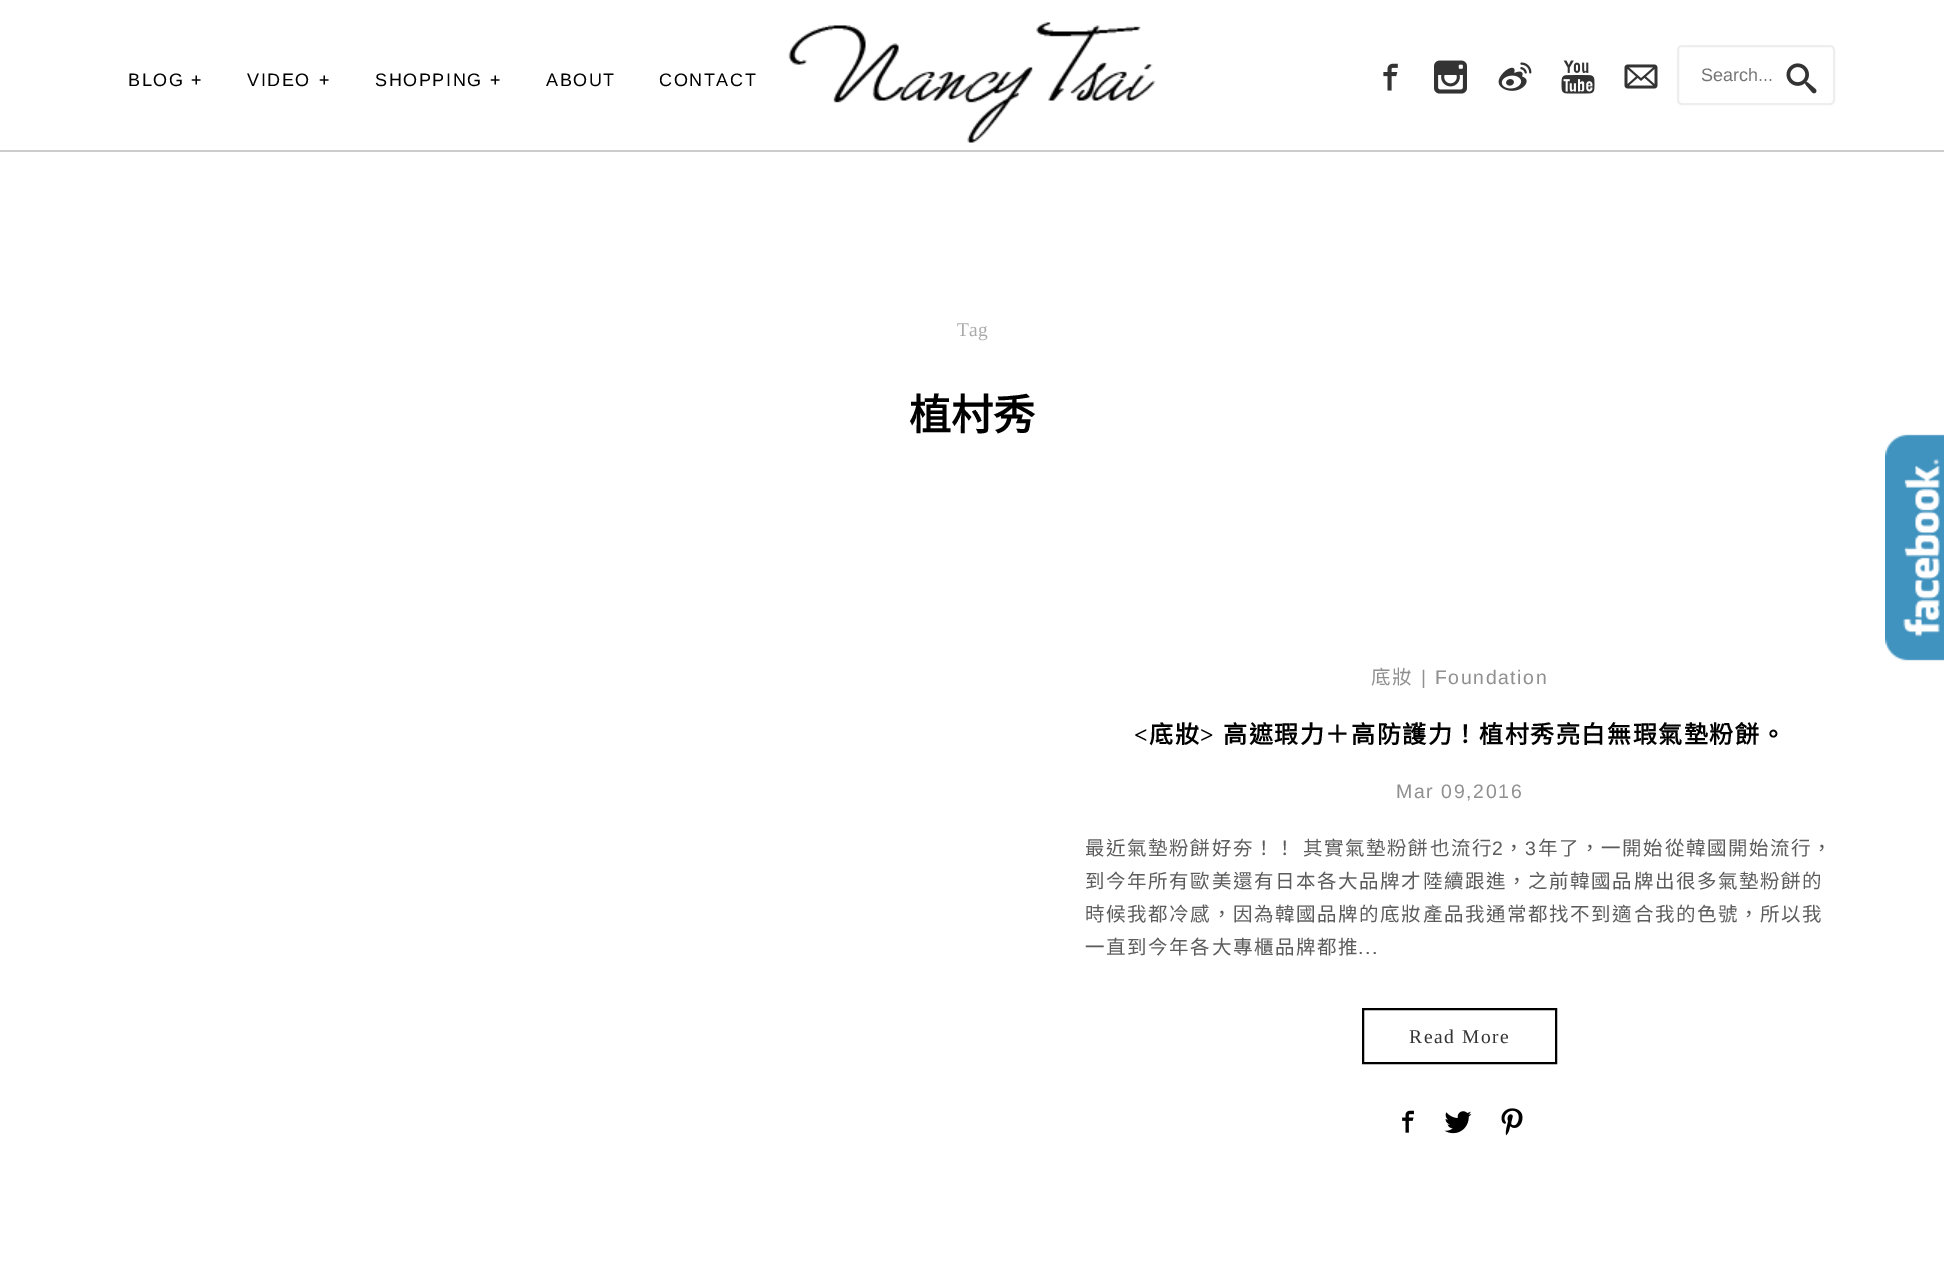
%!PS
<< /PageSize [1944 1286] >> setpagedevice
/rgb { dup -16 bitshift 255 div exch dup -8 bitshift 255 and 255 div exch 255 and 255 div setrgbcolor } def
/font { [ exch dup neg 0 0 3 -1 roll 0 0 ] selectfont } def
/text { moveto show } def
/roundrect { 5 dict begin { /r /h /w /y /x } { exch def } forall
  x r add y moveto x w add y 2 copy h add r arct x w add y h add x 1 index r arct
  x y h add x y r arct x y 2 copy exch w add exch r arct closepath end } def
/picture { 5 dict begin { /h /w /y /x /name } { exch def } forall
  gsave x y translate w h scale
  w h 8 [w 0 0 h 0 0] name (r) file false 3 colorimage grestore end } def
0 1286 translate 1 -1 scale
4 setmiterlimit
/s1 { /LiberationSans-Regular 18 font 16#757575 rgb } def
/s2 { /LiberationSerif-Regular 19.5 font 16#AAAAAA rgb } def
/s3 { /NotoSansCJKTC-Bold 42 font 16#000000 rgb } def
16#FFFFFF rgb
0 0 1944 1286 rectfill
16#CCCCCC rgb
0 150 1944 2 rectfill
/LiberationSans-Regular 18 font
16#000000 rgb
128 86 moveto 1.6 0 (BLOG) ashow
191 86 moveto 1.6 0 (+) ashow
247 86 moveto 1.6 0 (VIDEO) ashow
319 86 moveto 1.6 0 (+) ashow
375 86 moveto 1.6 0 (SHOPPING) ashow
490 86 moveto 1.6 0 (+) ashow
546 86 moveto 1.6 0 (ABOUT) ashow
659 86 moveto 1.6 0 (CONTACT) ashow
(pic1.raw) 788 22 368 121 picture
(pic2.raw) 1383 63 15 28 picture
(pic3.raw) 1434 60 33 34 picture
(pic4.raw) 1498 62 34 29 picture
(pic5.raw) 1561 60 34 34 picture
(pic6.raw) 1624 64 34 25 picture
16#EEEEED rgb
2 setlinewidth
1678 46 156 58 4 roundrect stroke
s1
(Search...) 1701 81 text
(pic7.raw) 1786 63 31 31 picture
s2
(Tag) 957 336 text
s3
(植村秀) 909 430 text
/NotoSansCJKTC-Regular 19.5 font
16#909090 rgb
1371 684 moveto 1.6 0 (底妝) ashow
/LiberationSans-Regular 19.5 font
1421 684 moveto 1.6 0 (| Foundation) ashow
/LiberationSerif-Bold 24 font
16#000000 rgb
1134 743 moveto 1.6 0 (<) ashow
/NotoSansCJKTC-Bold 24 font
1149 743 moveto 1.6 0 (底妝) ashow
/LiberationSerif-Bold 24 font
1200 743 moveto 1.6 0 (>) ashow
/NotoSansCJKTC-Bold 24 font
1223 743 moveto 1.6 0 (高遮瑕力＋高防護力！植村秀亮白無瑕氣墊粉餅。) ashow
/LiberationSans-Regular 19.5 font
16#909090 rgb
1396 798 moveto 1.6 0 (Mar 09,2016) ashow
/NotoSansCJKTC-Regular 19.5 font
16#5C5C5C rgb
1085 855 moveto 1 0 32 1.6 0 (最近氣墊粉餅好夯！！ 其實氣墊粉餅也流行) awidthshow
/LiberationSans-Regular 19.5 font
1492 855 moveto 1.6 0 (2) ashow
/NotoSansCJKTC-Regular 19.5 font
1504 855 moveto 1.6 0 (，) ashow
/LiberationSans-Regular 19.5 font
1525 855 moveto 1.6 0 (3) ashow
/NotoSansCJKTC-Regular 19.5 font
1538 855 moveto 1.6 0 (年了，一開始從韓國開始流行，) ashow
1085 888 moveto 1.6 0 (到今年所有歐美還有日本各大品牌才陸續跟進，之前韓國品牌出很多氣墊粉餅的) ashow
1085 921 moveto 1.6 0 (時候我都冷感，因為韓國品牌的底妝產品我通常都找不到適合我的色號，所以我) ashow
1085 954 moveto 1.6 0 (一直到今年各大專櫃品牌都推) ashow
/LiberationSans-Regular 19.5 font
1358 954 moveto 1.6 0 (...) ashow
16#000000 rgb
1363 1009 193 54 rectstroke
/LiberationSerif-Regular 19.5 font
16#333333 rgb
1409 1043 moveto 1.6 0 (Read More) ashow
(pic8.raw) 1402 1110 12 23 picture
(pic9.raw) 1444 1111 28 23 picture
(pic10.raw) 1501 1108 22 28 picture
(pic11.raw) 1885 434 59 227 picture
showpage
